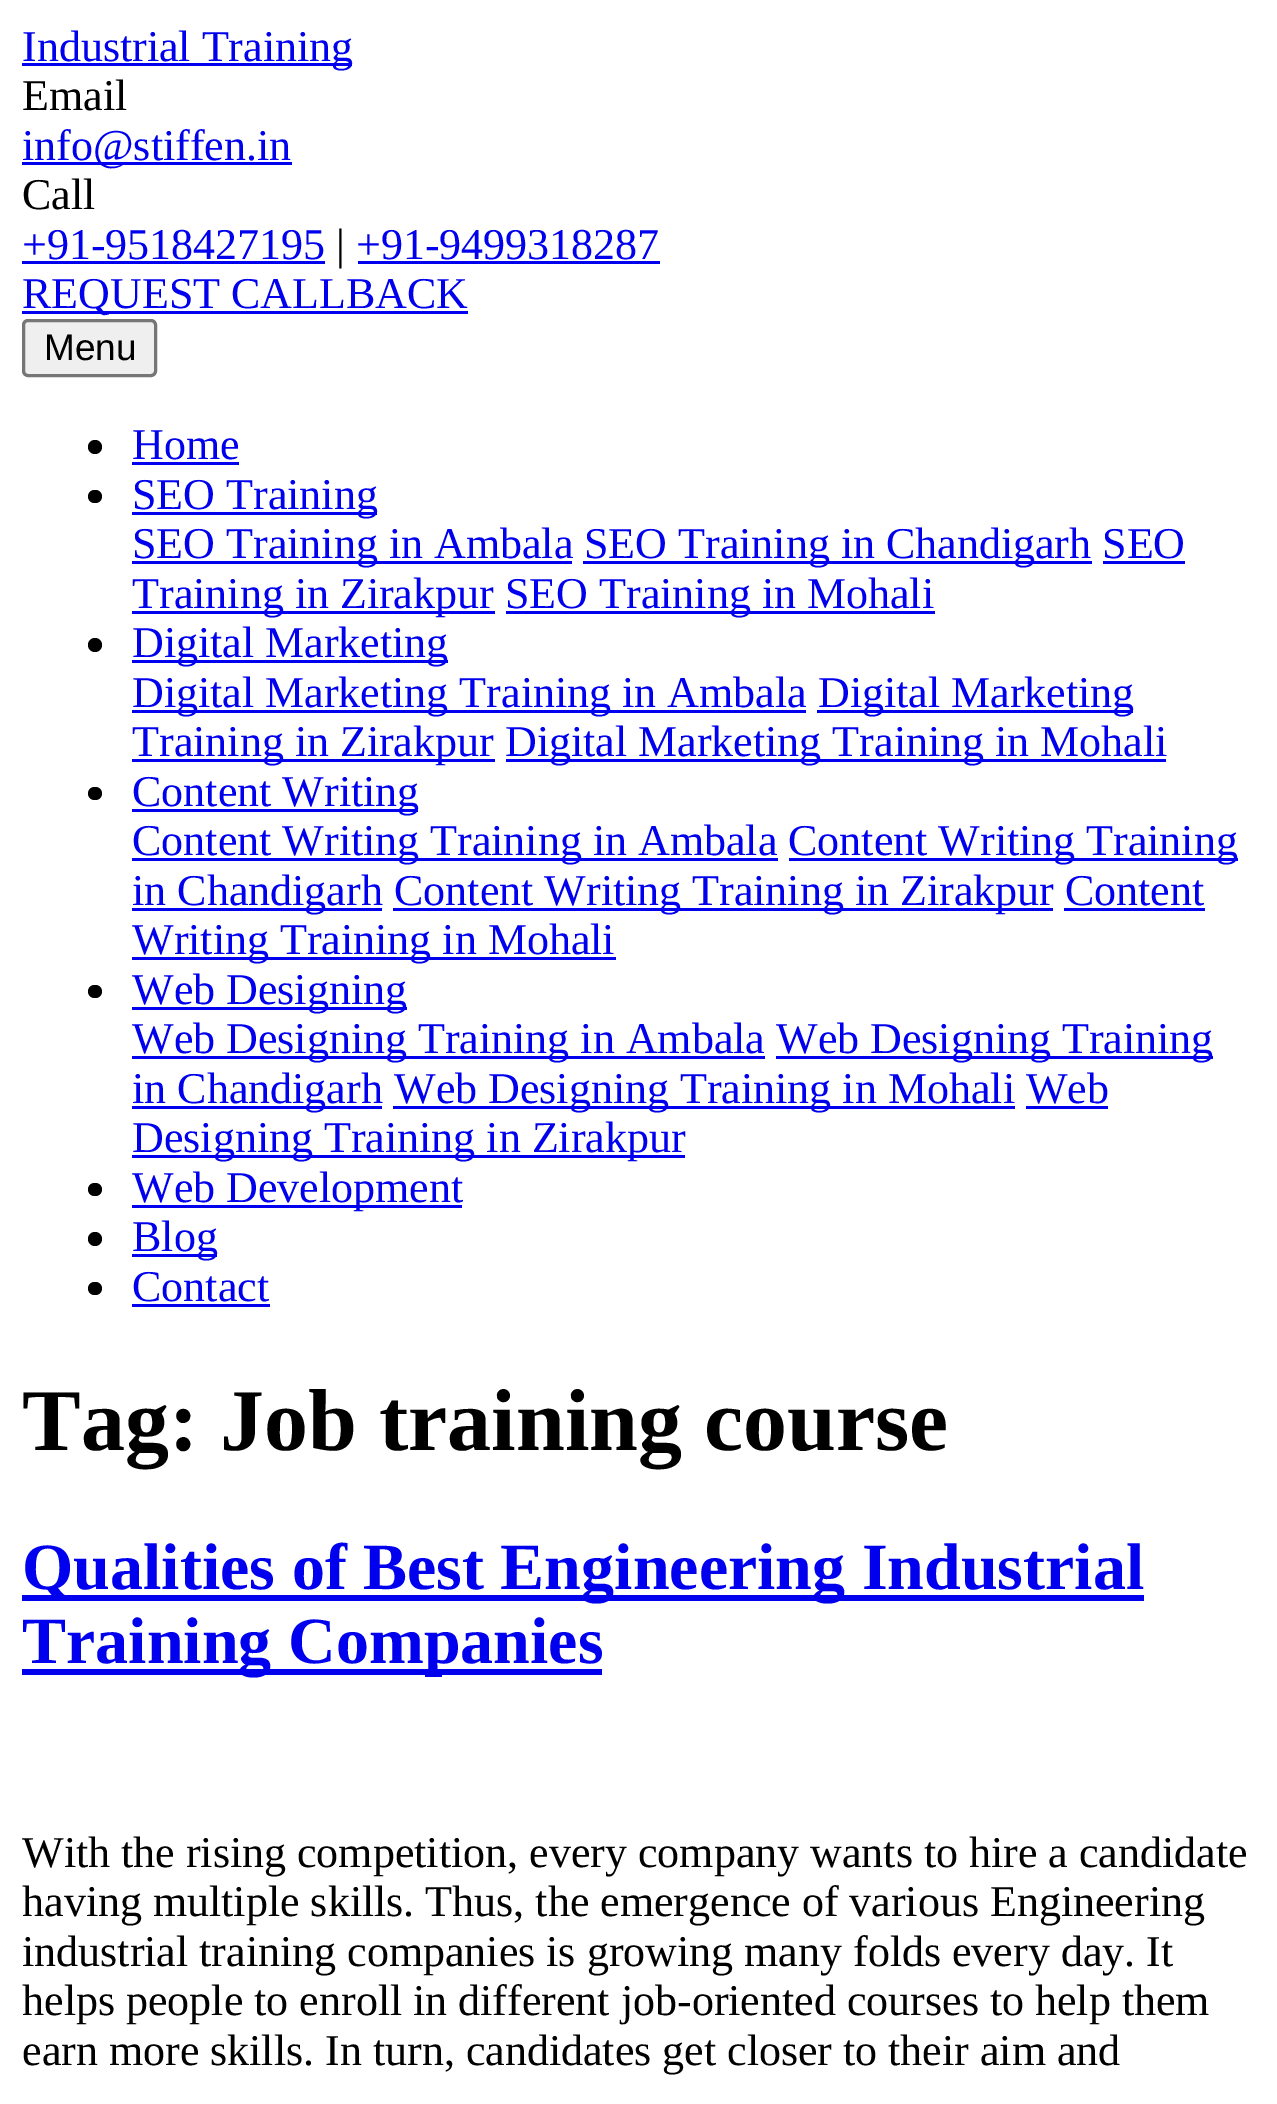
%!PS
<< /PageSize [1277 2104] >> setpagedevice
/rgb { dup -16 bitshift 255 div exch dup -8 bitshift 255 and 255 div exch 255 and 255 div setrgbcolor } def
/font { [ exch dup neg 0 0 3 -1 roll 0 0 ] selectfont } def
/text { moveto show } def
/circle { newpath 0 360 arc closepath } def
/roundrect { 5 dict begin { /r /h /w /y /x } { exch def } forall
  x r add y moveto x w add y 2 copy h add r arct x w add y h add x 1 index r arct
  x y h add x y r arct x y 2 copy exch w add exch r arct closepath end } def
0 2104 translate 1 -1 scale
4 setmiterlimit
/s1 { /LiberationSerif-Regular 44 font 16#0000EE rgb } def
/s2 { /LiberationSerif-Regular 44 font 16#000000 rgb } def
/s3 { /LiberationSans-Regular 37 font 16#000000 rgb } def
/s4 { /LiberationSerif-Bold 88 font 16#000000 rgb } def
/s5 { /LiberationSerif-Bold 66 font 16#0000EE rgb } def
16#FFFFFF rgb
0 0 1277 2104 rectfill
16#0000EE rgb
22 63 330 3 rectfill
s1
(Industrial Training) 22 61 text
s2
(Email) 22 110 text
16#0000EE rgb
22 162 270 3 rectfill
(info@stiffen.in) 22 160 text
s2
(Call) 22 209 text
s1
(+91-9518427195) 22 259 text
22 261 303 3 rectfill
s2
(|) 336 259 text
s1
(+91-9499318287) 356 259 text
358 261 302 3 rectfill
22 311 446 3 rectfill
(REQUEST CALLBACK) 22 308 text
16#EFEFEF rgb
23.5 320.5 132 55 4.5 roundrect gsave fill grestore
16#767676 rgb
3 setlinewidth
stroke
s3
(Menu) 44 360 text
95 447 7 circle fill
s1
(Home) 132 459 text
132 462 107 3 rectfill
16#000000 rgb
88 490 14 13 6.5 roundrect fill
16#0000EE rgb
132 512 245 3 rectfill
(SEO Training) 132 509 text
132 561 440 3 rectfill
(SEO Training in Ambala) 132 558 text
583 561 509 3 rectfill
(SEO Training in Chandigarh SEO) 584 558 text
132 611 363 3 rectfill
(Training in Zirakpur) 132 608 text
1103 561 82 3 rectfill
506 611 429 3 rectfill
(SEO Training in Mohali) 505 608 text
16#000000 rgb
95 645 7 circle fill
16#0000EE rgb
132 660 316 3 rectfill
(Digital Marketing) 132 657 text
132 710 674 3 rectfill
(Digital Marketing Training in Ambala) 132 707 text
817 710 316 3 rectfill
(Digital Marketing) 818 707 text
132 759 363 3 rectfill
(Training in Zirakpur) 132 756 text
506 759 660 3 rectfill
(Digital Marketing Training in Mohali) 505 756 text
16#000000 rgb
88 787 14 13 6.5 roundrect fill
16#0000EE rgb
132 809 286 3 rectfill
(Content Writing) 132 806 text
132 858 646 3 rectfill
(Content Writing Training in Ambala) 132 855 text
789 858 449 3 rectfill
(Content Writing Training) 788 855 text
132 908 250 3 rectfill
(in Chandigarh) 132 905 text
393 908 660 3 rectfill
(Content Writing Training in Zirakpur Content) 394 905 text
132 957 484 3 rectfill
(Writing Training in Mohali) 132 954 text
1064 908 141 3 rectfill
16#000000 rgb
88 985 14 13 6.5 roundrect fill
16#0000EE rgb
132 1007 275 3 rectfill
(Web Designing) 132 1004 text
132 1056 633 3 rectfill
(Web Designing Training in Ambala) 132 1053 text
776 1056 437 3 rectfill
(Web Designing Training) 776 1053 text
132 1106 250 3 rectfill
(in Chandigarh) 132 1103 text
393 1106 622 3 rectfill
(Web Designing Training in Mohali Web) 394 1103 text
132 1155 553 3 rectfill
(Designing Training in Zirakpur) 132 1152 text
1026 1106 82 3 rectfill
16#000000 rgb
88 1183 14 13 6.5 roundrect fill
16#0000EE rgb
132 1205 330 3 rectfill
(Web Development) 132 1202 text
16#000000 rgb
95 1239 7 circle fill
16#0000EE rgb
132 1254 85 3 rectfill
(Blog) 132 1251 text
16#000000 rgb
88 1282 14 13 6.5 roundrect fill
s1
(Contact) 132 1301 text
132 1304 138 3 rectfill
s4
(Tag: Job training course) 22 1450 text
16#0000EE rgb
22 1595 1122 6 rectfill
s5
(Qualities of Best Engineering Industrial) 22 1589 text
22 1669 580 6 rectfill
(Training Companies) 22 1663 text
s2
(With the rising competition, every company wants to hire a candidate) 22 1867 text
(having multiple skills. Thus, the emergence of various Engineering) 22 1916 text
(industrial training companies is growing many folds every day. It) 22 1966 text
(helps people to enroll in different job-oriented courses to help them) 22 2015 text
(earn more skills. In turn, candidates get closer to their aim and) 22 2065 text
showpage
